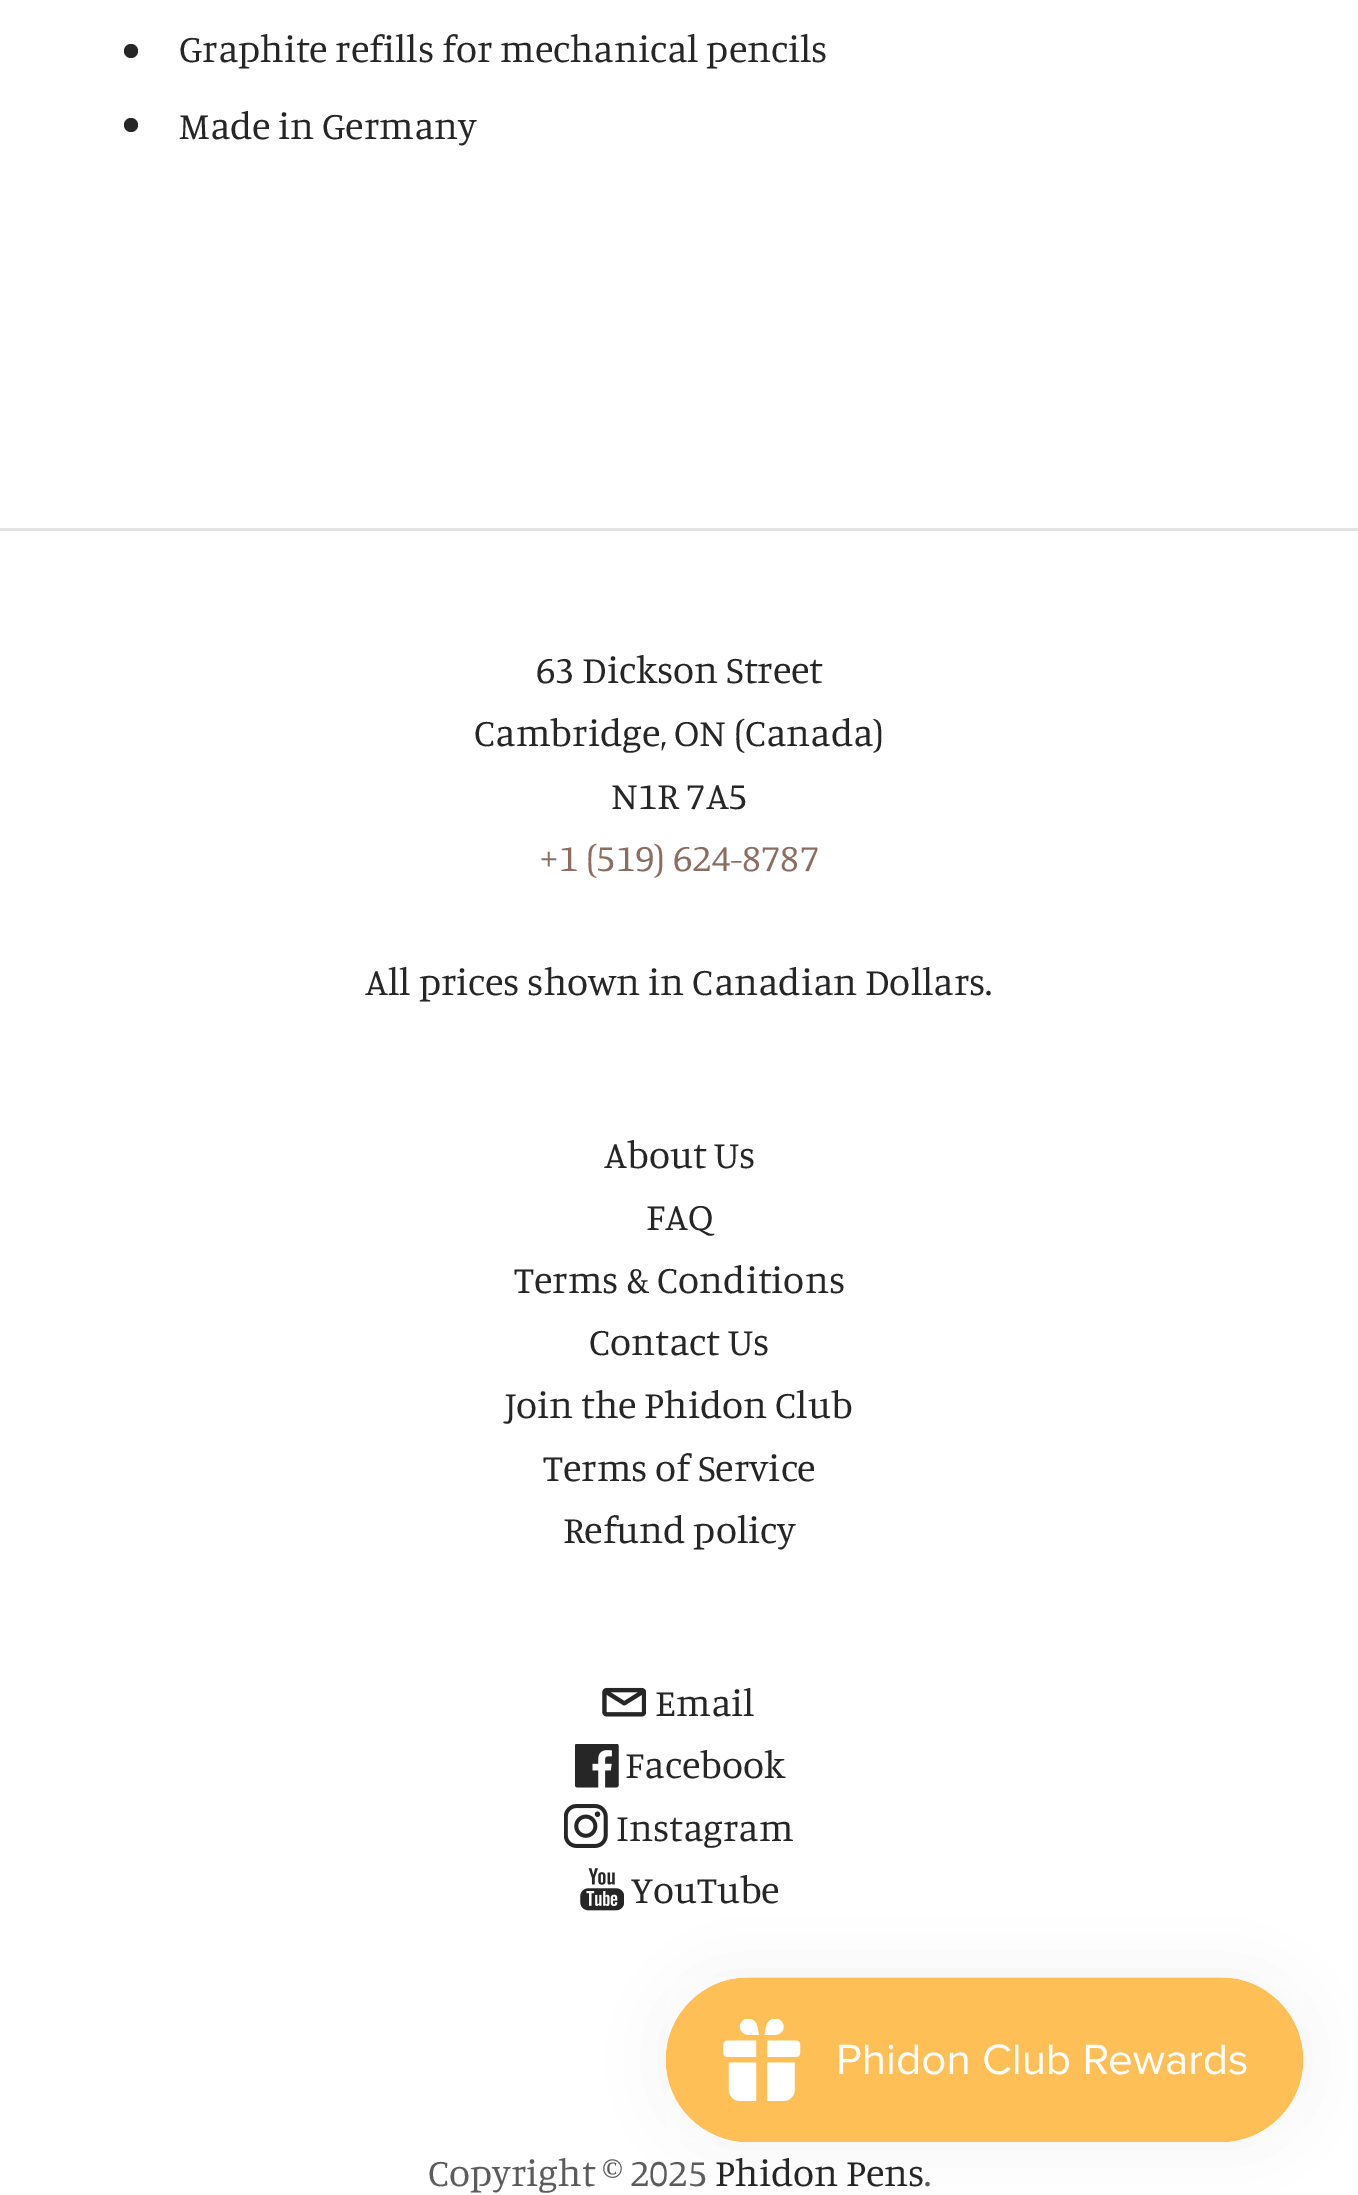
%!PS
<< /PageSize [1358 2195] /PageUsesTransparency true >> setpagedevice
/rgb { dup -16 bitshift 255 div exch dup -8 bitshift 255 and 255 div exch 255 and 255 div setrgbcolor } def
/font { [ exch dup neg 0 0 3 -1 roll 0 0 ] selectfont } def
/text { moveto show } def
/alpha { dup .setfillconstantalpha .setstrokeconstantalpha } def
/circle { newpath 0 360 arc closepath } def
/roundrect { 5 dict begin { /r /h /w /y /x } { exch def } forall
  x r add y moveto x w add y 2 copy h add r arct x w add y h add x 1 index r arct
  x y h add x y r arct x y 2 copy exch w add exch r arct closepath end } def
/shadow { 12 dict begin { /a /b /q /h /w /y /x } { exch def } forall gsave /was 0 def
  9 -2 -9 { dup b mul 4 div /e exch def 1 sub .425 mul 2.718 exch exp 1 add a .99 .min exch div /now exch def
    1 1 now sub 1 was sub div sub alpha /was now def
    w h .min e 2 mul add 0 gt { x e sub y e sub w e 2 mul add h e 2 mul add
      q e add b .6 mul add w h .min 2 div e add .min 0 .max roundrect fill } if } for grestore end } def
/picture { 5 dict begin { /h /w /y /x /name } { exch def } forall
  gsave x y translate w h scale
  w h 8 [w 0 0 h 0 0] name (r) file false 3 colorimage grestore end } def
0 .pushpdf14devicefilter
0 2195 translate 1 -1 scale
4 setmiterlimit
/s1 { /Manuale-Regular 38.5 font 16#262626 rgb } def
/s2 { /Manuale-Regular 38.5 font 16#8C6D5F rgb } def
/s3 { /Manuale-Regular 38.5 font 16#5C5C5C rgb } def
16#FFFFFF rgb
0 0 1358 2195 rectfill
16#262626 rgb
131 51 7 circle fill
s1
(Graphite refills for mechanical pencils) 179 62 text
131 125 7 circle fill
(Made in Germany) 179 139 text
16#E4E4E4 rgb
0 528 1358 3 rectfill
s1
(63 Dickson Street) 536 683 text
(Cambridge, ON \(Canada\)) 474 746 text
(N1R 7A5) 611 809 text
s2
(+1 \(519\) 624-8787) 539 871 text
s1
(All prices shown in Canadian Dollars.) 365 995 text
(About Us) 604 1168 text
(FAQ) 646 1230 text
(Terms & Conditions) 514 1293 text
(Contact Us) 589 1355 text
(Join the Phidon Club) 505 1418 text
(Terms of Service) 543 1481 text
(Refund policy) 563 1543 text
(pic1.raw) 602 1687 44 30 picture
(Email) 655 1716 text
(pic2.raw) 575 1744 44 44 picture
(Facebook) 625 1778 text
(pic3.raw) 564 1804 44 44 picture
(Instagram) 616 1841 text
(pic4.raw) 580 1868 44 43 picture
(YouTube) 631 1903 text
s3
(Copyright © 2025) 428 2186 text
s1
(Phidon Pens) 715 2186 text
s3
(.) 924 2186 text
16#000000 rgb
666 1977 638 165 82.5 34.5 0.05 shadow
(pic5.raw) 666 1977 638 165 picture
.poppdf14devicefilter showpage
